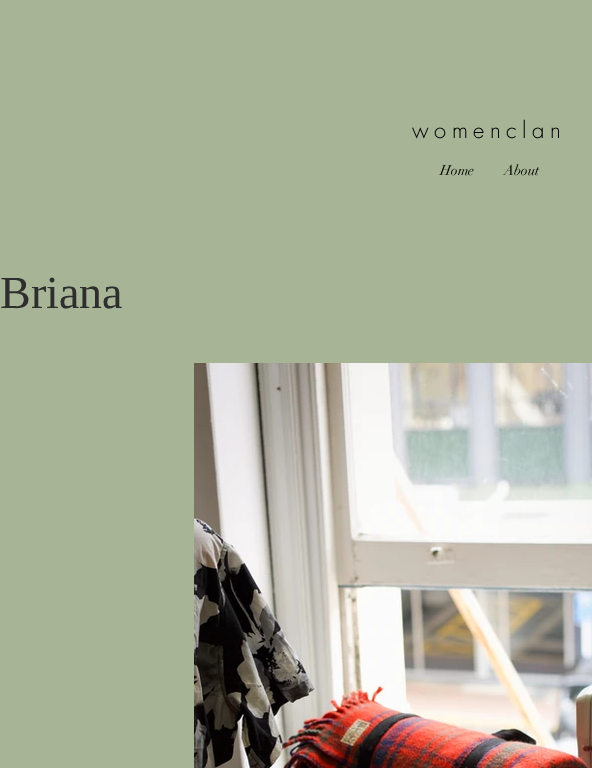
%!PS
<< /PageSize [592 768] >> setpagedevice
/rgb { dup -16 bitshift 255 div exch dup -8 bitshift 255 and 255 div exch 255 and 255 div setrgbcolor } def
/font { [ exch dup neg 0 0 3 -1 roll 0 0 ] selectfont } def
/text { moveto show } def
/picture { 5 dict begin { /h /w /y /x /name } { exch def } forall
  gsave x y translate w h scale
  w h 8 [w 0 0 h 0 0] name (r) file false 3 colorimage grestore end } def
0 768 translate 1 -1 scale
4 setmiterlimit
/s1 { /didot-Regular 14 font 16#000000 rgb } def
/s2 { /LiberationSerif-Regular 46 font 16#2F2E2E rgb } def
16#A7B496 rgb
0 0 592 768 rectfill
/futura-Light 22 font
16#000000 rgb
412 138 moveto 5.5 0 (womenclan) ashow
s1
(Home) 440 175 text
(About) 504 175 text
s2
(Briana) 0 308 text
(pic1.raw) 194 363 398 405 picture
showpage
